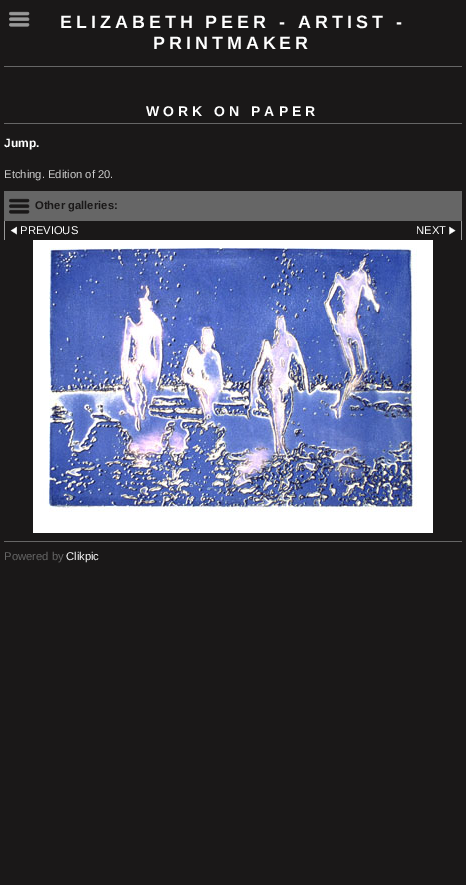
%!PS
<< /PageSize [466 885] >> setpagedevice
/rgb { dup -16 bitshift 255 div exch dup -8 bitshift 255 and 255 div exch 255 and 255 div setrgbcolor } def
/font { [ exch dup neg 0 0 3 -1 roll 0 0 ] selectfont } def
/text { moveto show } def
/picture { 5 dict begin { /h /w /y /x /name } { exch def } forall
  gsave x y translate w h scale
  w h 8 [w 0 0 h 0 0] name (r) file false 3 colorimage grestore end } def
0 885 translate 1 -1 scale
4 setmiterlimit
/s1 { /LiberationSans-Bold 12 font 16#FFFFFF rgb } def
/s2 { /LiberationSans-Regular 11.25 font 16#CCCCCC rgb } def
/s3 { /LiberationSans-Bold 11.25 font 16#1A1818 rgb } def
/s4 { /LiberationSans-Regular 11.25 font 16#FFFFFF rgb } def
/s5 { /LiberationSans-Regular 11.25 font 16#666666 rgb } def
16#1A1818 rgb
0 0 466 885 rectfill
16#666666 rgb
4 66 458 1 rectfill
(pic1.raw) 9 11 21 16 picture
/LiberationSans-Bold 17.9 font
16#FFFFFF rgb
60 28 moveto 4 0 (ELIZABETH PEER - ARTIST -) ashow
153 49 moveto 4 0 (PRINTMAKER) ashow
16#666666 rgb
4 123 458 1 rectfill
/LiberationSans-Bold 14 font
16#FFFFFF rgb
146 116 moveto 4 0 (WORK ON PAPER) ashow
s1
(Jump.) 4 147 text
s2
(Etching. Edition of 20.) 4 178 text
16#666666 rgb
4 191 458 30 rectfill
(pic2.raw) 9 198 21 16 picture
s3
(Other galleries:) 35 209 text
16#999999 rgb
4 221 1 19 rectfill
(pic3.raw) 10 226 7 9 picture
s4
(PREVIOUS) 20 234 text
16#999999 rgb
461 221 1 19 rectfill
s4
(NEXT) 416 234 text
(pic4.raw) 449 226 7 9 picture
(pic5.raw) 33 240 400 293 picture
16#666666 rgb
4 541 458 1 rectfill
(Powered by) 4 560 text
s4
(Clikpic) 66 560 text
showpage
